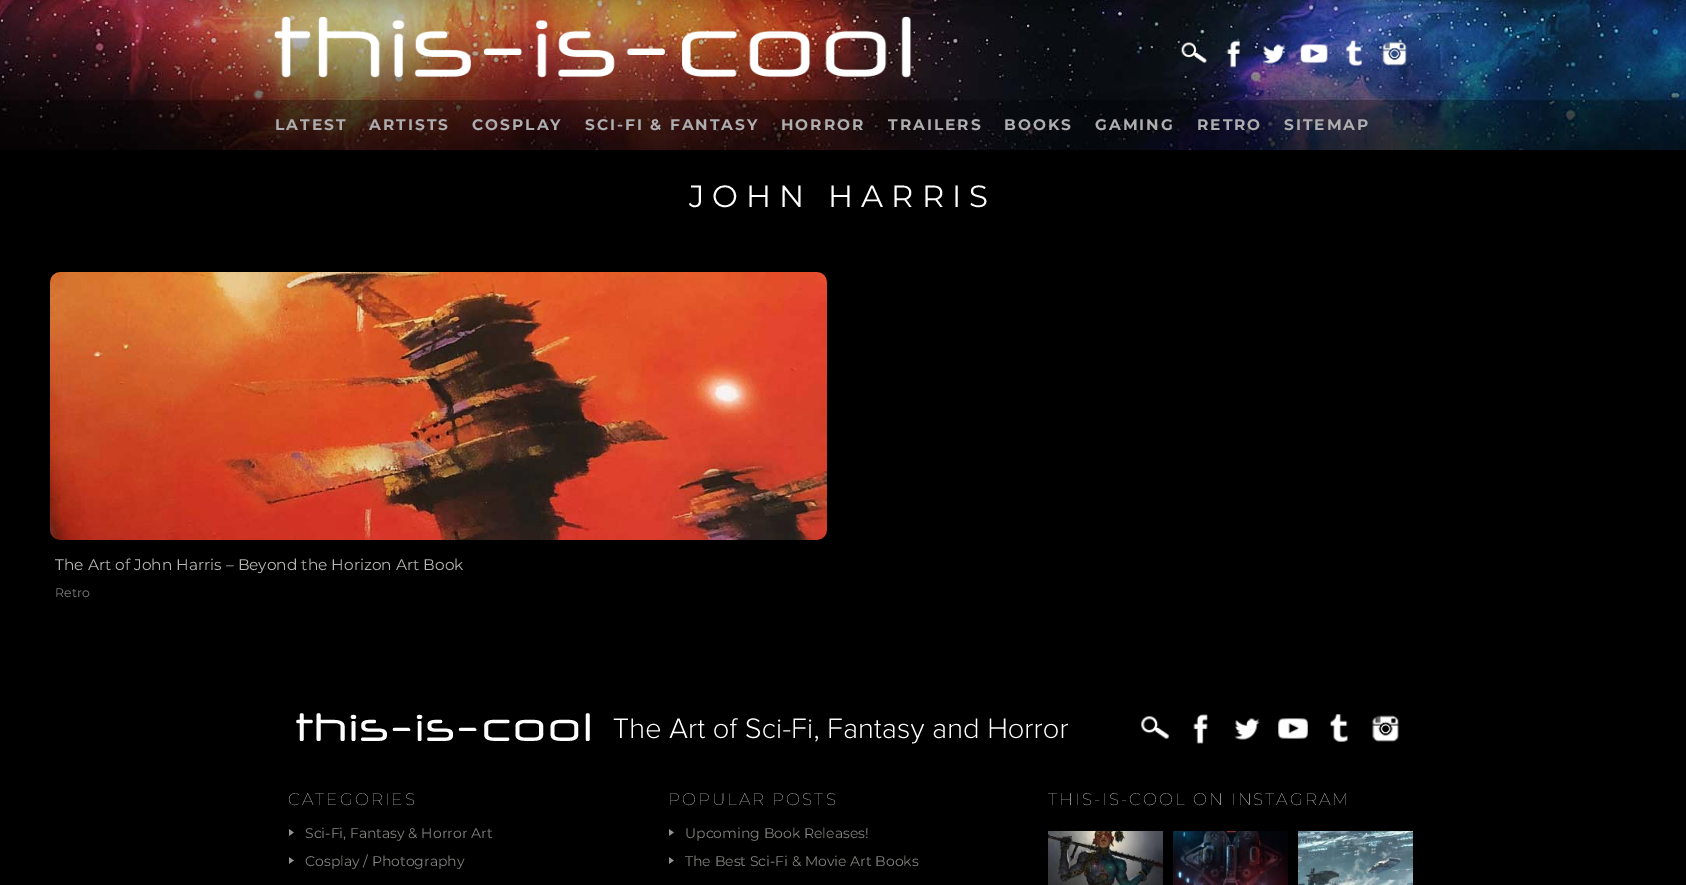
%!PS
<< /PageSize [1686 885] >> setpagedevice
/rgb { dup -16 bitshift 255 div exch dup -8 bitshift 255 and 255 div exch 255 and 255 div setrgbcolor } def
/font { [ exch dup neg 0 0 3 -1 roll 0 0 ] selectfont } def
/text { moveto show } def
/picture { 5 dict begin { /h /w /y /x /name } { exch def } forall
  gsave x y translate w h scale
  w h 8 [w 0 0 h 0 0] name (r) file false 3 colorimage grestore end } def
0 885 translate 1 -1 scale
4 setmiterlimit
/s1 { /Montserrat-Regular 15.4 font 16#B5B8B4 rgb } def
/s2 { /Montserrat-Regular 12.5 font 16#81847F rgb } def
/s3 { /Montserrat-Regular 14 font 16#81847F rgb } def
16#000000 rgb
0 0 1686 885 rectfill
(pic1.raw) 0 0 1686 150 picture
(pic2.raw) 274 16 637 62 picture
(pic3.raw) 1181 42 26 21 picture
(pic4.raw) 1227 40 13 28 picture
(pic5.raw) 1262 44 24 20 picture
(pic6.raw) 1300 44 28 19 picture
(pic7.raw) 1346 40 16 26 picture
(pic8.raw) 1382 41 25 25 picture
/Montserrat-Bold 15.4 font
16#AEADAF rgb
275 130 moveto 2 0 (LATEST) ashow
369 130 moveto 2 0 (ARTISTS) ashow
472 130 moveto 2 0 (COSPLAY) ashow
585 130 moveto 2 0 (SCI-FI & FANTASY) ashow
781 130 moveto 2 0 (HORROR) ashow
888 130 moveto 2 0 (TRAILERS) ashow
1004 130 moveto 2 0 (BOOKS) ashow
1095 130 moveto 2 0 (GAMING) ashow
1197 130 moveto 2 0 (RETRO) ashow
1284 130 moveto 2 0 (SITEMAP) ashow
/Montserrat-Regular 30.75 font
16#FFFFFF rgb
689 207 moveto 8 0 (JOHN HARRIS) ashow
(pic9.raw) 50 272 777 268 picture
s1
(The Art of John Harris – Beyond the Horizon Art Book) 55 570 text
s2
(Retro) 55 597 text
(pic10.raw) 296 713 772 31 picture
(pic11.raw) 1141 716 28 23 picture
(pic12.raw) 1193 714 15 30 picture
(pic13.raw) 1234 718 26 22 picture
(pic14.raw) 1278 718 30 21 picture
(pic15.raw) 1330 714 18 28 picture
(pic16.raw) 1372 715 27 27 picture
/Montserrat-Thin 16.75 font
16#FFFFFF rgb
288 805 moveto 2 0 (CATEGORIES) ashow
(pic17.raw) 289 829 5 7 picture
s3
(Sci-Fi, Fantasy & Horror Art) 305 838 text
(pic17.raw) 289 857 5 7 picture
(Cosplay / Photography) 305 866 text
/Montserrat-Thin 16.75 font
16#FFFFFF rgb
668 805 moveto 2 0 (POPULAR POSTS) ashow
(pic17.raw) 669 829 5 7 picture
s3
(Upcoming Book Releases!) 685 838 text
(pic17.raw) 669 857 5 7 picture
(The Best Sci-Fi & Movie Art Books) 685 866 text
/Montserrat-Thin 16.75 font
16#FFFFFF rgb
1048 805 moveto 2 0 (THIS-IS-COOL ON INSTAGRAM) ashow
(pic18.raw) 1048 831 115 54 picture
(pic19.raw) 1173 831 115 54 picture
(pic20.raw) 1298 831 115 54 picture
showpage
